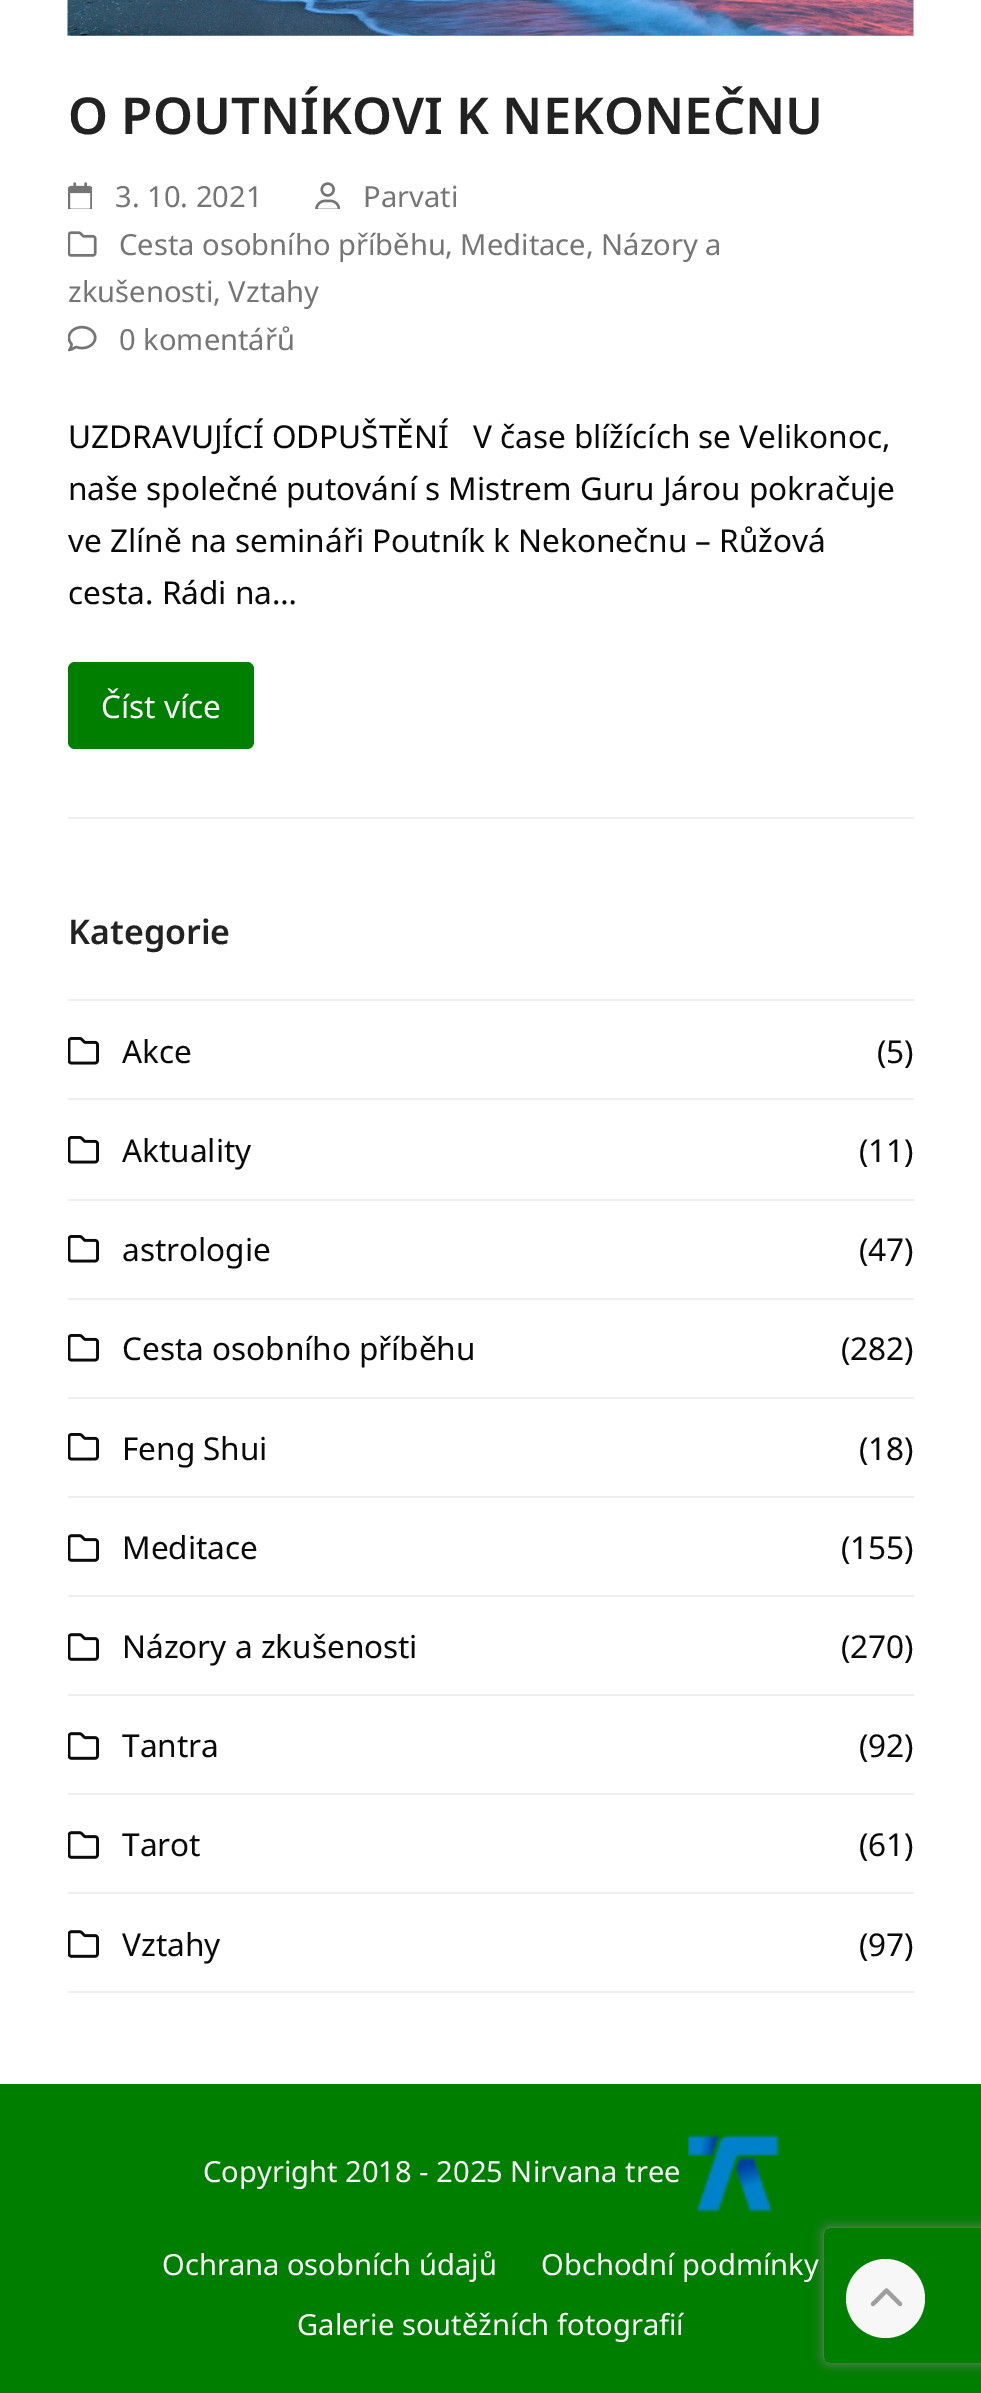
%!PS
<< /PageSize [981 2393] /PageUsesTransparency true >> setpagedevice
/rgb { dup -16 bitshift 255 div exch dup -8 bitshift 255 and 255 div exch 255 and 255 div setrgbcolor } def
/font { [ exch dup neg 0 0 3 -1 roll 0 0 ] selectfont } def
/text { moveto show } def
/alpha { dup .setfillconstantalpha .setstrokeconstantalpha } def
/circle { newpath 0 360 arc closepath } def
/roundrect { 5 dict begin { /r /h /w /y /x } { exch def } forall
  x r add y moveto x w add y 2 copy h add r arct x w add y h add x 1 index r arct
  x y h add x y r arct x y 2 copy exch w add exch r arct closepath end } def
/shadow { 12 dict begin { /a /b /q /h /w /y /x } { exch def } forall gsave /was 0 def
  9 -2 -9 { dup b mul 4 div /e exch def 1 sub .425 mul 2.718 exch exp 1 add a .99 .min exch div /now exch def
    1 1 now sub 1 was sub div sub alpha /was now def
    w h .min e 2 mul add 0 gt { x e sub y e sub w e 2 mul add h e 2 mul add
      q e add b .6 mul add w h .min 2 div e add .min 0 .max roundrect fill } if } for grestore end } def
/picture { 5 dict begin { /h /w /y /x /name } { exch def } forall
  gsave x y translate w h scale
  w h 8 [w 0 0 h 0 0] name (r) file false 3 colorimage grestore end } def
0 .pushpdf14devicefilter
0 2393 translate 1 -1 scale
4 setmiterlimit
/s1 { /NotoSans-SemiBold 50.9 font 16#222222 rgb } def
/s2 { /NotoSans-Regular 29.1 font 16#757575 rgb } def
/s3 { /NotoSans-Regular 31.5 font 16#0A0A0A rgb } def
/s4 { /NotoSans-Regular 31.5 font 16#FFFFFF rgb } def
/s5 { /NotoSans-SemiBold 34 font 16#222222 rgb } def
/s6 { /NotoSans-Regular 29.1 font 16#FFFFFF rgb } def
16#FFFFFF rgb
0 0 981 2393 rectfill
(pic1.raw) 67 0 847 36 picture
s1
(O POUTNÍKOVI K NEKONEČNU) 68 134 text
(pic2.raw) 68 182 24 27 picture
s2
(3. 10. 2021) 115 207 text
(pic3.raw) 315 182 25 27 picture
(Parvati) 363 207 text
(pic4.raw) 68 231 29 26 picture
(Cesta osobního příběhu) 119 255 text
(, Meditace, Názory a) 445 255 text
(zkušenosti, Vztahy) 68 302 text
(pic5.raw) 68 325 29 27 picture
(0 komentářů) 119 350 text
s3
(UZDRAVUJÍCÍ ODPUŠTĚNÍ   V čase blížících se Velikonoc,) 68 448 text
(naše společné putování s Mistrem Guru Járou pokračuje) 68 500 text
(ve Zlíně na semináři Poutník k Nekonečnu – Růžová) 68 552 text
(cesta. Rádi na…) 68 604 text
16#007E00 rgb
68 662 186 87 7 roundrect fill
s4
(Číst více) 101 718 text
16#EEEEEE rgb
68 817 846 2 rectfill
s5
(Kategorie) 68 944 text
16#EEEEEE rgb
68 999 846 2 rectfill
68 1098 846 2 rectfill
(pic6.raw) 68 1037 31 28 picture
s3
(Akce) 122 1063 text
(\(5\)) 877 1063 text
16#EEEEEE rgb
68 1199 846 2 rectfill
(pic6.raw) 68 1136 31 28 picture
s3
(Aktuality) 122 1162 text
(\(11\)) 859 1162 text
16#EEEEEE rgb
68 1298 846 2 rectfill
(pic6.raw) 68 1235 31 28 picture
s3
(astrologie) 122 1261 text
(\(47\)) 859 1261 text
16#EEEEEE rgb
68 1397 846 2 rectfill
(pic6.raw) 68 1334 31 28 picture
s3
(Cesta osobního příběhu) 122 1360 text
(\(282\)) 841 1360 text
16#EEEEEE rgb
68 1496 846 2 rectfill
(pic6.raw) 68 1433 31 28 picture
s3
(Feng Shui) 122 1460 text
(\(18\)) 859 1460 text
16#EEEEEE rgb
68 1595 846 2 rectfill
(pic7.raw) 68 1534 31 28 picture
s3
(Meditace) 122 1559 text
(\(155\)) 841 1559 text
16#EEEEEE rgb
68 1694 846 2 rectfill
(pic7.raw) 68 1633 31 28 picture
s3
(Názory a zkušenosti) 122 1658 text
(\(270\)) 841 1658 text
16#EEEEEE rgb
68 1793 846 2 rectfill
(pic7.raw) 68 1732 31 28 picture
s3
(Tantra) 122 1757 text
(\(92\)) 859 1757 text
16#EEEEEE rgb
68 1892 846 2 rectfill
(pic7.raw) 68 1831 31 28 picture
s3
(Tarot) 122 1856 text
(\(61\)) 859 1856 text
16#EEEEEE rgb
68 1991 846 2 rectfill
(pic7.raw) 68 1930 31 28 picture
s3
(Vztahy) 122 1956 text
(\(97\)) 859 1956 text
16#007E00 rgb
0 2084 981 309 rectfill
s6
(Copyright 2018 - 2025 Nirvana tree) 203 2182 text
(pic8.raw) 688 2134 91 79 picture
(Ochrana osobních údajů) 162 2275 text
(Obchodní podmínky) 541 2275 text
(Galerie soutěžních fotografií) 297 2335 text
gsave
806 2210 moveto 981 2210 lineto 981 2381 lineto 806 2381 lineto closepath 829 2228 moveto 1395 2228 lineto 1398 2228 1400 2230 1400 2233 curveto 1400 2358 lineto 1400 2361 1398 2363 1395 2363 curveto 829 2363 lineto 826 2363 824 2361 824 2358 curveto 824 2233 lineto 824 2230 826 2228 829 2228 curveto closepath eoclip newpath
16#808080 rgb
824 2228 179 135 5 5.5 1 shadow
grestore
16#F7F7F7 rgb
885.5 2298.5 39.5 circle fill
(pic9.raw) 870 2288 33 19 picture
.poppdf14devicefilter showpage
